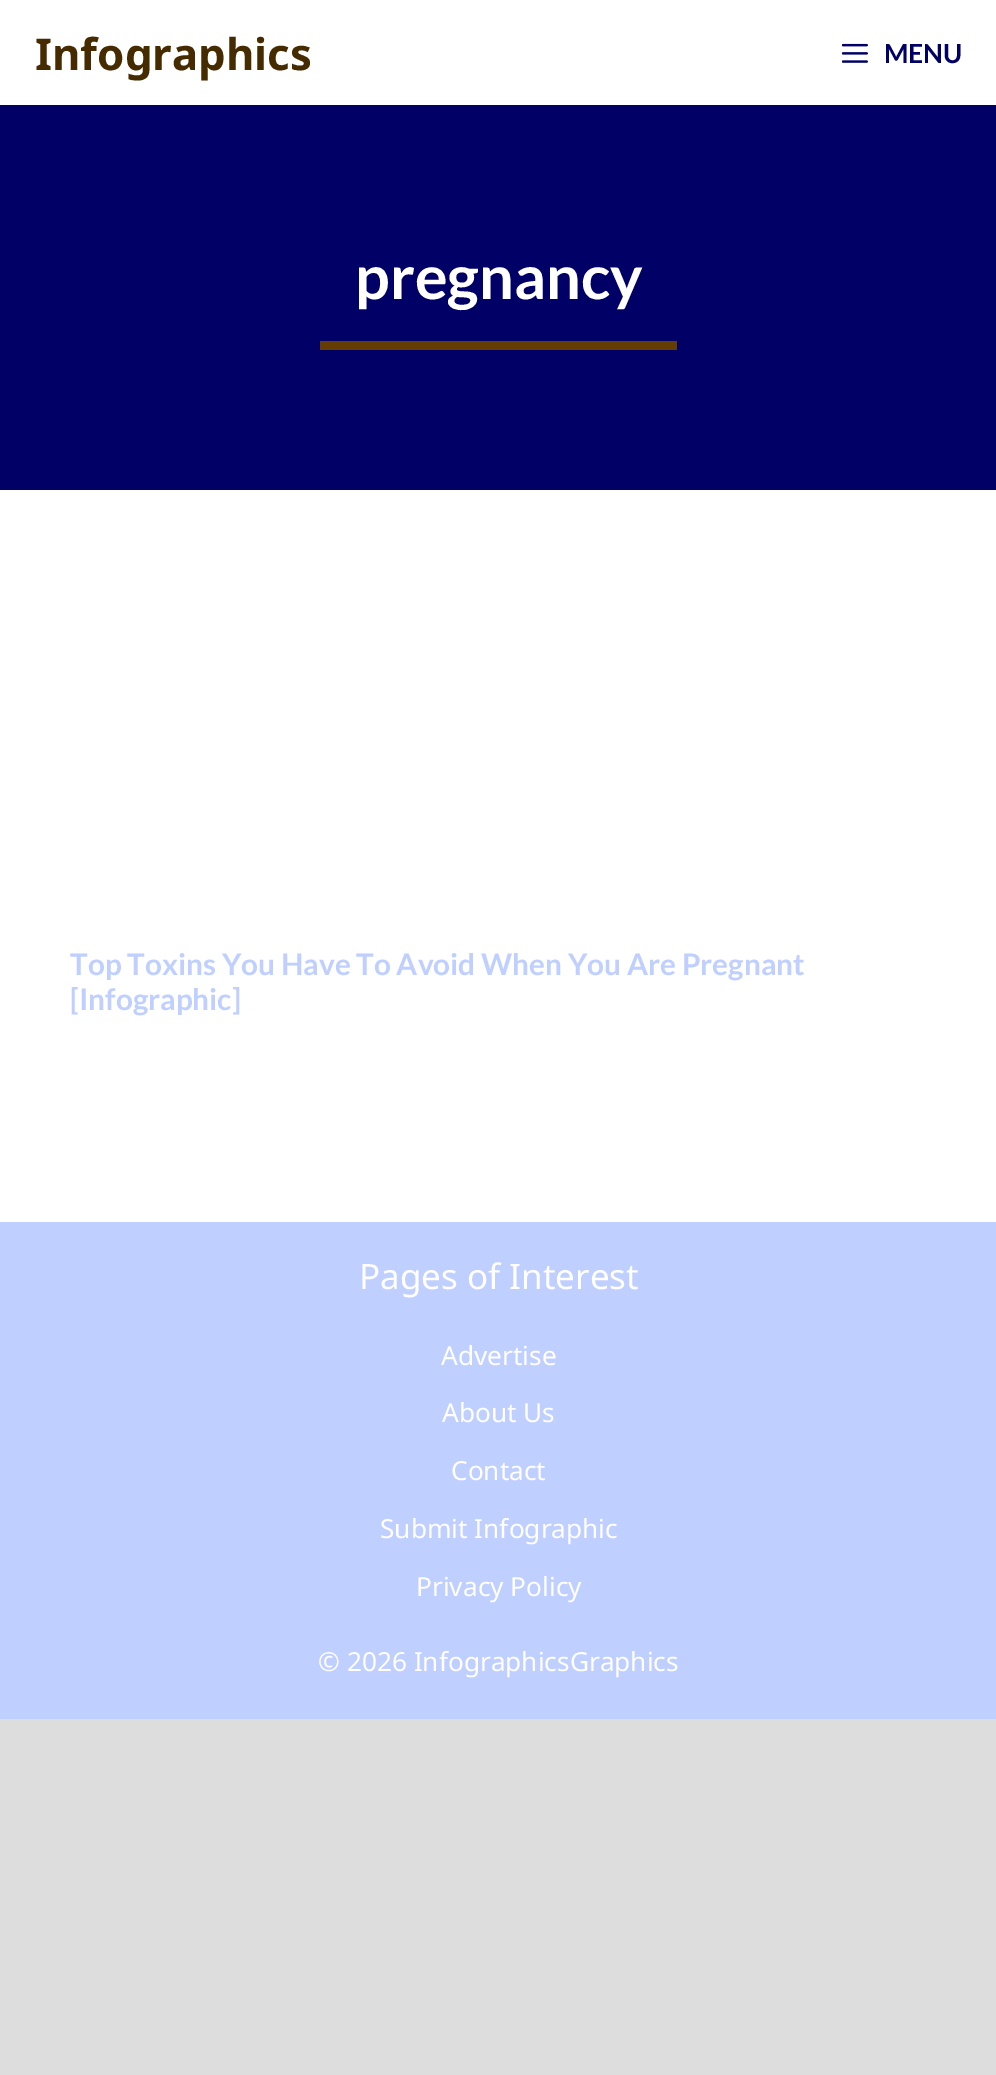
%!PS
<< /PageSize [996 2075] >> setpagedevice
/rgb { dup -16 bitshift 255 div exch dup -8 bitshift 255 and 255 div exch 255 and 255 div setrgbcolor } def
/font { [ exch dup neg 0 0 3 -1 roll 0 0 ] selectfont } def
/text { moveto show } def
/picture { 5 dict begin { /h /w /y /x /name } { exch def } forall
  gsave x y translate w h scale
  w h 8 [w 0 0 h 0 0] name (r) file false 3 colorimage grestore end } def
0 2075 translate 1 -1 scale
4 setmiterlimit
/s1 { /NotoSans-Bold 43.75 font 16#472B00 rgb } def
/s2 { /Lato-Bold 26.25 font 16#000066 rgb } def
/s3 { /Lato-Bold 61.25 font 16#FFFFFF rgb } def
/s4 { /Lato-Bold 29.75 font 16#BFCFFF rgb } def
/s5 { /NotoSans-Regular 35 font 16#FFFFFF rgb } def
/s6 { /NotoSans-Regular 26.25 font 16#FFFFFF rgb } def
16#DDDDDD rgb
0 0 996 2075 rectfill
16#BFCFFF rgb
0 1222 996 497 rectfill
16#FFFFFF rgb
0 0 996 105 rectfill
s1
(Infographics) 35 70 text
(pic1.raw) 842 43 26 20 picture
s2
(MENU) 884 63 text
0 105 996 385 rectfill
16#663D00 rgb
320 341 357 9 rectfill
s3
(pregnancy) 355 299 text
0 490 996 732 rectfill
s4
(Top Toxins You Have To Avoid When You Are Pregnant) 70 975 text
([Infographic]) 70 1010 text
s5
(Pages of Interest) 359 1289 text
s6
(Advertise) 441 1365 text
(About Us) 442 1422 text
(Contact) 451 1480 text
(Submit Infographic) 380 1538 text
(Privacy Policy) 416 1596 text
(© 2026 InfographicsGraphics) 318 1671 text
showpage
